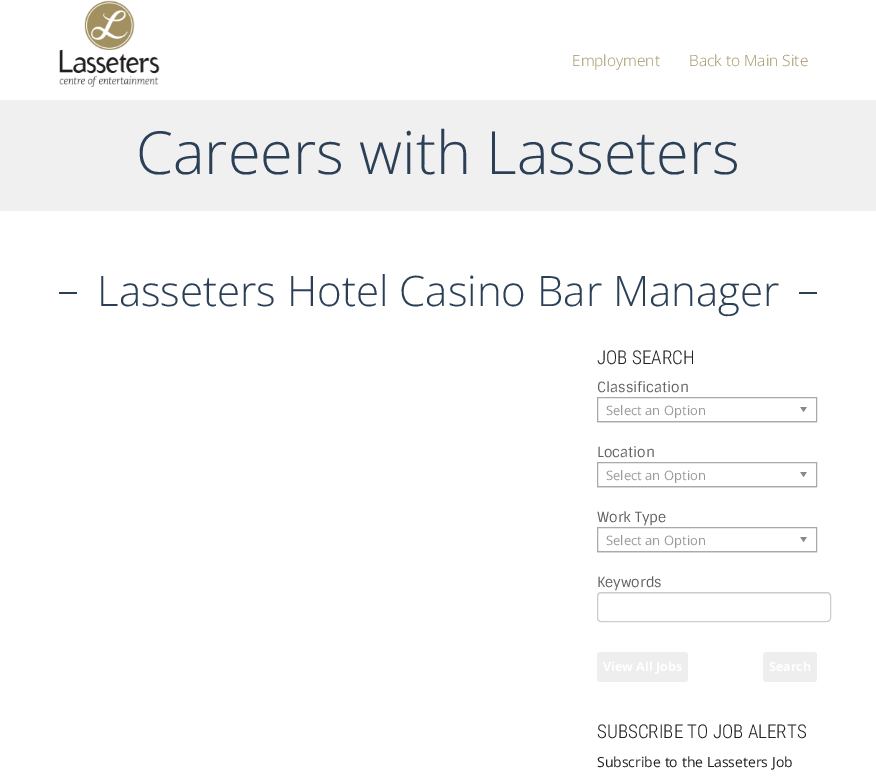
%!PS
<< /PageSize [876 776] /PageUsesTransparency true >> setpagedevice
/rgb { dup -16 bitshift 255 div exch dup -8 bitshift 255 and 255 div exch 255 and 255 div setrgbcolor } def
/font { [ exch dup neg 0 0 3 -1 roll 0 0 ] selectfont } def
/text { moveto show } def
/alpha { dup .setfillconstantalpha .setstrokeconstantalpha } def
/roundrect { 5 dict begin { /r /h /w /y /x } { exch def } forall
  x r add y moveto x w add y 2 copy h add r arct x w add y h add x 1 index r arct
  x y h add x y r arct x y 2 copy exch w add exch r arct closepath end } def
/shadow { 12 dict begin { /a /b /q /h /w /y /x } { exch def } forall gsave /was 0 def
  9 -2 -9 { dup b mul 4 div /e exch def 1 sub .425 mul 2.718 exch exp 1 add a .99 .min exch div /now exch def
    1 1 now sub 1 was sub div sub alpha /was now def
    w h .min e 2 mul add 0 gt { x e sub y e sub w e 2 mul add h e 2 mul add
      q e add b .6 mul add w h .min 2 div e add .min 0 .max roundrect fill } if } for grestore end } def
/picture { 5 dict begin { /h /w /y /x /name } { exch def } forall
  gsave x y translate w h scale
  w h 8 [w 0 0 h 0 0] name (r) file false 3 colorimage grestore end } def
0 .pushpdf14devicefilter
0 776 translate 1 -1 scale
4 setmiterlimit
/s1 { /OpenSans-Light 15.5 font 16#A29060 rgb } def
/s2 { /OpenSans-Light 59.5 font 16#2B4056 rgb } def
/s3 { /OpenSans-Light 42 font 16#2B4056 rgb } def
/s4 { /RobotoCondensed-Light 19 font 16#231F20 rgb } def
/s5 { /Sintony-Regular 14 font 16#616161 rgb } def
/s6 { /OpenSans-Regular 13 font 16#999999 rgb } def
/s7 { /OpenSans-Bold 12.5 font 16#FFFFFF rgb } def
/s8 { /OpenSans-Regular 14 font 16#231F20 rgb } def
16#FFFFFF rgb
0 0 876 776 rectfill
(pic1.raw) 59 0 101 87 picture
s1
(Employment) 572 66 text
(Back to Main Site) 689 66 text
16#F0F0F0 rgb
0 100 876 111 rectfill
s2
(Careers with Lasseters) 136 174 text
59 292 18 2 rectfill
s3
(Lasseters Hotel Casino Bar Manager) 97 306 text
799 292 18 2 rectfill
s4
(JOB SEARCH) 597 364 text
s5
(Classification) 597 392 text
gsave
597 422 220 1 rectclip
16#000000 rgb
597 398 220 25 0 0.5 0.1 shadow
grestore
16#AAAAAA rgb
597.5 397.5 219 24 rectstroke
s6
(Select an Option) 606 415 text
(pic2.raw) 800 407 7 6 picture
s5
(Location) 597 457 text
gsave
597 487 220 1 rectclip
16#000000 rgb
597 463 220 25 0 0.5 0.1 shadow
grestore
16#AAAAAA rgb
597.5 462.5 219 24 rectstroke
s6
(Select an Option) 606 480 text
(pic2.raw) 800 472 7 6 picture
s5
(Work Type) 597 522 text
gsave
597 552 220 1 rectclip
16#000000 rgb
597 528 220 25 0 0.5 0.1 shadow
grestore
16#AAAAAA rgb
597.5 527.5 219 24 rectstroke
s6
(Select an Option) 606 545 text
(pic2.raw) 800 537 7 6 picture
s5
(Keywords) 597 587 text
16#ECECEC rgb
601 594 moveto 827 594 lineto 829 594 830 595 830 597 curveto 830 595 829 593 827 593 curveto 601 593 lineto 599 593 598 595 598 597 curveto 598 595 599 594 601 594 curveto closepath fill
16#CCCCCC rgb
597.5 592.5 233 29 3.5 roundrect stroke
16#EEEEEE rgb
597 652 91 30 3 roundrect fill
s7
(View All Jobs) 603 671 text
16#EEEEEE rgb
763 652 54 30 3 roundrect fill
s7
(Search) 769 671 text
s4
(SUBSCRIBE TO JOB ALERTS) 597 738 text
s8
(Subscribe to the Lasseters Job) 597 767 text
.poppdf14devicefilter showpage
